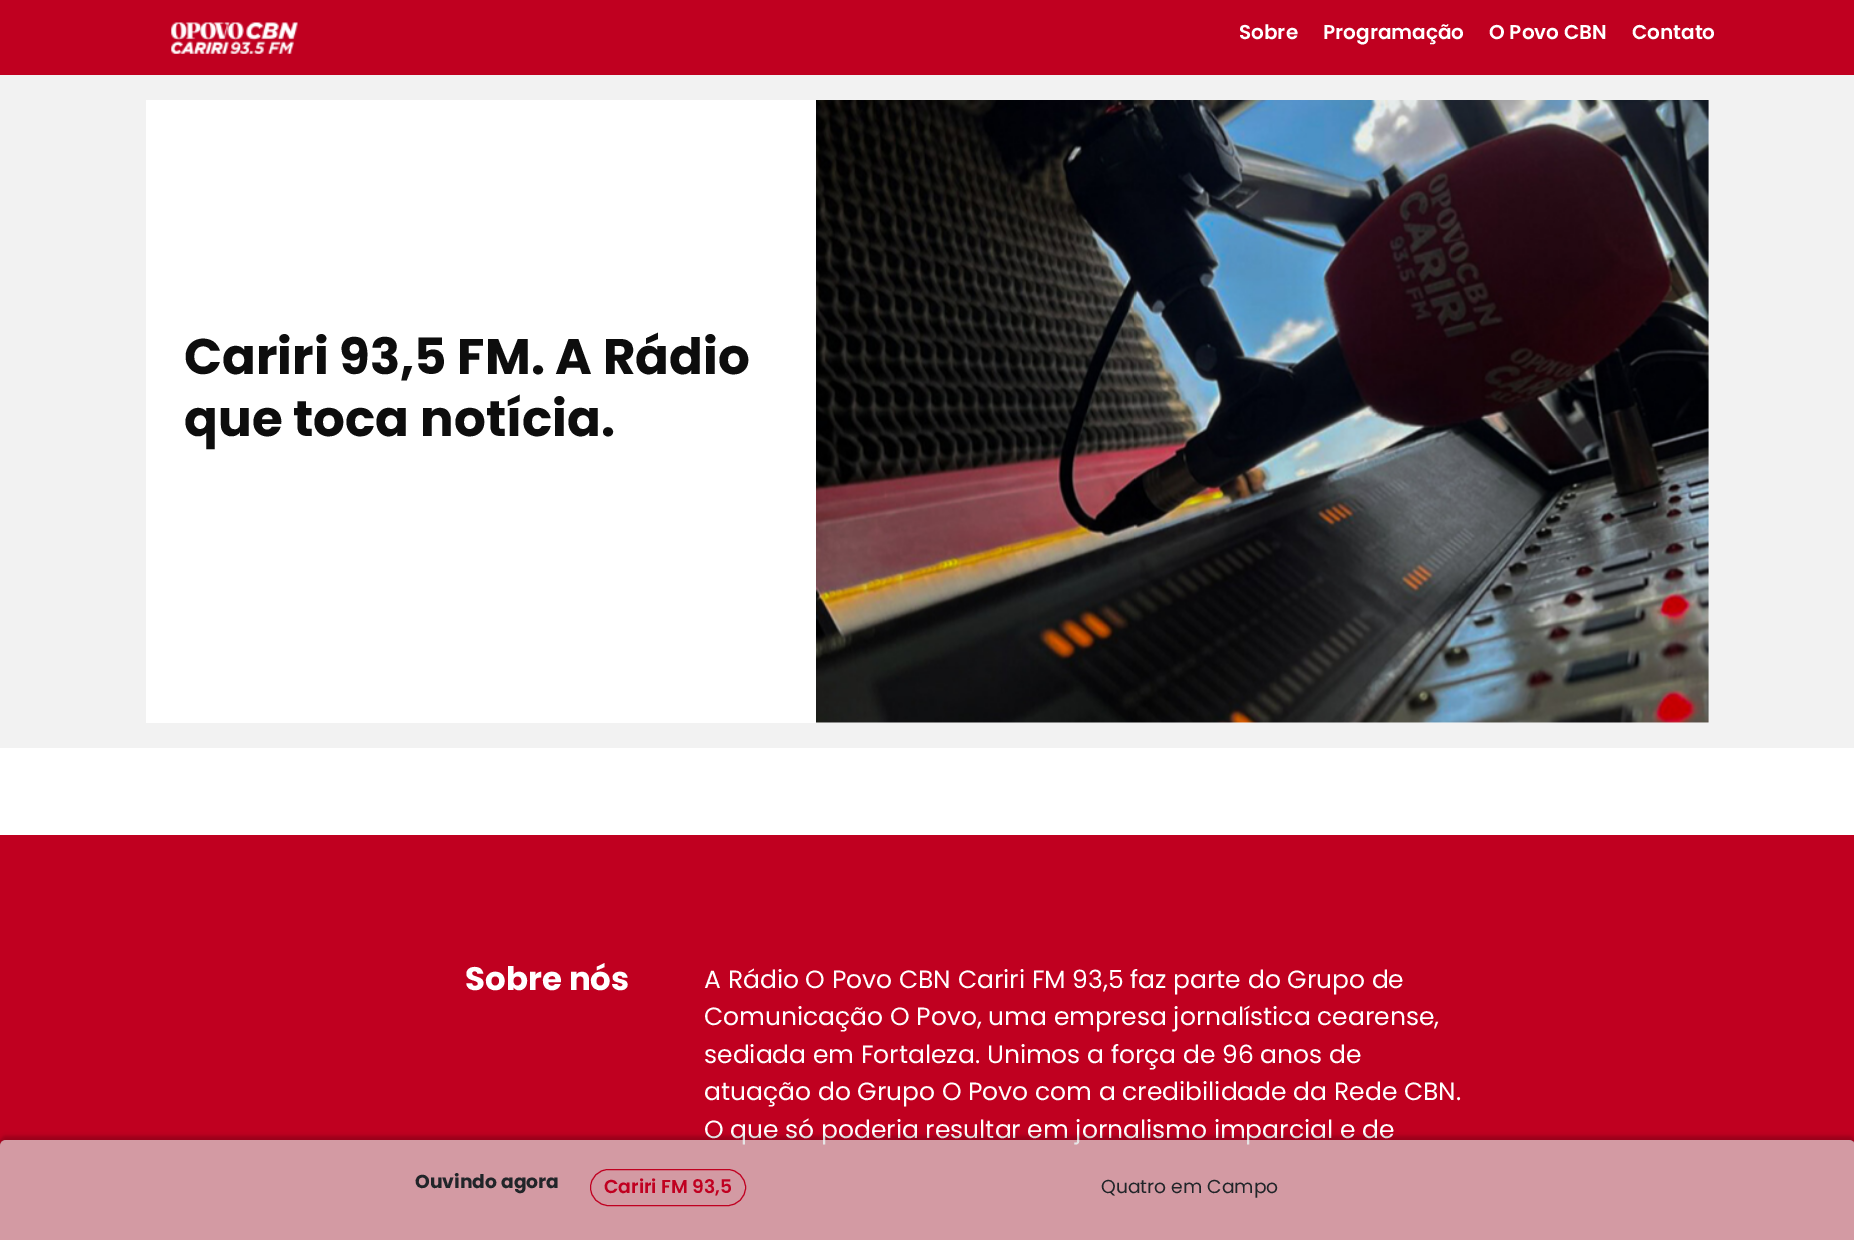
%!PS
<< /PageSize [1854 1240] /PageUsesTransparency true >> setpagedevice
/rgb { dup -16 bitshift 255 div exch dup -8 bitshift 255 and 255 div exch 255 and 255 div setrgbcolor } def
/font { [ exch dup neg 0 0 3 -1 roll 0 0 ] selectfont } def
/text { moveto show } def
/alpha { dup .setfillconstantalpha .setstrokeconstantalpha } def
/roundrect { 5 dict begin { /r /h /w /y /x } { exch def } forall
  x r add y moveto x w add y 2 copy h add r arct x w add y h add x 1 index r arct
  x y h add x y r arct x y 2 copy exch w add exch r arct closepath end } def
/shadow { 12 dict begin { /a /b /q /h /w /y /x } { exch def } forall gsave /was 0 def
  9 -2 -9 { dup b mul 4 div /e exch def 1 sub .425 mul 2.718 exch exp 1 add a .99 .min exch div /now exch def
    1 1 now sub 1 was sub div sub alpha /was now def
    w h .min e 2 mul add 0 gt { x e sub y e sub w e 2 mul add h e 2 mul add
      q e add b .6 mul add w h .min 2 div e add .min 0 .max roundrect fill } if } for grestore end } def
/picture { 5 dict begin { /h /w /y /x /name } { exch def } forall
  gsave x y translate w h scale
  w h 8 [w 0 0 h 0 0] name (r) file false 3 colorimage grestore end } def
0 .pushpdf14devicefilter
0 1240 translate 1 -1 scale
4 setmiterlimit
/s1 { /Poppins-SemiBold 20 font 16#FFFFFF rgb } def
/s2 { /Poppins-Bold 50 font 16#0D0D0D rgb } def
/s3 { /Poppins-Bold 32.5 font 16#FFFFFF rgb } def
/s4 { /Poppins-Regular 25 font 16#FFFFFF rgb } def
/s5 { /Poppins-Bold 18.75 font 16#212529 rgb } def
/s6 { /Poppins-SemiBold 18.75 font 16#C00020 rgb } def
/s7 { /Poppins-Regular 18.75 font 16#212529 rgb } def
16#FFFFFF rgb
0 0 1854 1240 rectfill
16#C00020 rgb
0 0 1854 75 rectfill
(pic1.raw) 171 22 127 32 picture
s1
(Sobre) 1239 39 text
(Programação) 1323 39 text
(O Povo CBN) 1489 39 text
(Contato) 1632 39 text
16#F2F2F2 rgb
0 75 1854 673 rectfill
16#FFFFFF rgb
146 100 1563 623 rectfill
s2
(Cariri 93,5 FM. A Rádio) 184 374 text
(que toca notícia.) 184 436 text
(pic2.raw) 816 100 893 623 picture
16#C00020 rgb
0 835 1854 405 rectfill
s3
(Sobre nós) 465 990 text
s4
(A Rádio O Povo CBN Cariri FM 93,5 faz parte do Grupo de) 704 988 text
(Comunicação O Povo, uma empresa jornalística cearense,) 704 1025 text
(sediada em Fortaleza. Unimos a força de 96 anos de) 704 1063 text
(atuação do Grupo O Povo com a credibilidade da Rede CBN.) 704 1100 text
(O que só poderia resultar em jornalismo imparcial e de) 704 1138 text
gsave
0 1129 moveto 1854 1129 lineto 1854 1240 lineto 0 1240 lineto closepath 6 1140 moveto 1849 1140 lineto 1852.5 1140 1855 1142.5 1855 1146 curveto 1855 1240 lineto 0 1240 lineto 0 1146 lineto 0 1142.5 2.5 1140 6 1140 curveto closepath eoclip newpath
16#000000 rgb
0 1136 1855 100 6 2 0.2 shadow
grestore
0.7 alpha
16#DBDBDB rgb
6 1140 moveto 1849 1140 lineto 1852.5 1140 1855 1142.5 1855 1146 curveto 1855 1240 lineto 0 1240 lineto 0 1146 lineto 0 1142.5 2.5 1140 6 1140 curveto closepath fill
1 alpha
s5
(Ouvindo agora) 415 1188 text
16#C00020 rgb
590.5 1169.5 155 36 18 roundrect stroke
s6
(Cariri FM 93,5) 604 1193 text
s7
(Quatro em Campo) 1101 1193 text
.poppdf14devicefilter showpage
